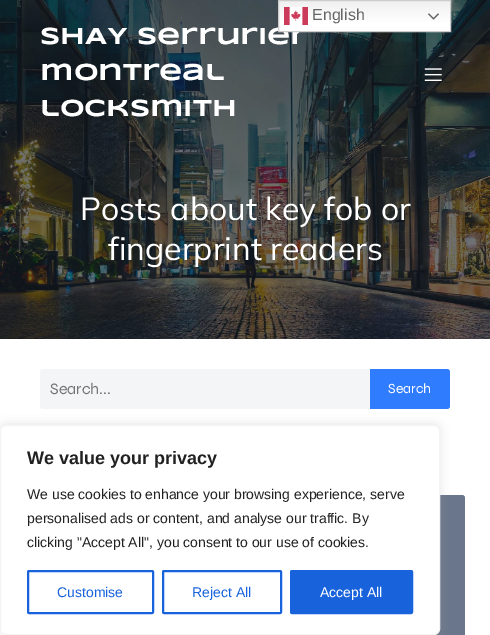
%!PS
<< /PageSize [490 635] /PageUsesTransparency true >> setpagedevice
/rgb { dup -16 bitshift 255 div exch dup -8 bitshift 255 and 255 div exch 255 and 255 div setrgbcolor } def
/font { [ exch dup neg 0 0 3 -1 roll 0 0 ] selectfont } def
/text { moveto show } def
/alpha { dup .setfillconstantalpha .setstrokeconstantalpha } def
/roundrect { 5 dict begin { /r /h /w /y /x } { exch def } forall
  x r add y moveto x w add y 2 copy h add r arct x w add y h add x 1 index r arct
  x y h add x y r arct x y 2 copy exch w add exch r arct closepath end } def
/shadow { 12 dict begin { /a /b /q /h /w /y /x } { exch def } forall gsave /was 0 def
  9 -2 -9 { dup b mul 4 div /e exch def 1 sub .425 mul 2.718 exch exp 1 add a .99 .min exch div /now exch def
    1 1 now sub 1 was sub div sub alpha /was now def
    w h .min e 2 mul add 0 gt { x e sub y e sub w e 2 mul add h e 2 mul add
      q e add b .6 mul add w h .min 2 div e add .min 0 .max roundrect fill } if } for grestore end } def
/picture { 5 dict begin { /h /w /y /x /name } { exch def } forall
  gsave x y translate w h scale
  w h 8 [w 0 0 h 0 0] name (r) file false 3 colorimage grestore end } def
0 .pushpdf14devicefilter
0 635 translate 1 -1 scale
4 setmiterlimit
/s1 { /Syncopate-Bold 24 font 16#FFFFFF rgb } def
/s2 { /LiberationSans-Regular 16 font 16#666666 rgb } def
/s3 { /Mulish-Regular 32 font 16#FFFFFF rgb } def
/s4 { /Syne-Regular 16 font 16#757575 rgb } def
/s5 { /Syne-Regular 14 font 16#FFFFFF rgb } def
/s6 { /LiberationSans-Bold 18 font 16#212121 rgb } def
/s7 { /LiberationSans-Regular 14 font 16#212121 rgb } def
/s8 { /LiberationSans-Regular 14 font 16#1863DC rgb } def
/s9 { /LiberationSans-Regular 14 font 16#FFFFFF rgb } def
16#FFFFFF rgb
0 0 490 635 rectfill
(pic4.raw) 0 0 490 339 picture
s1
(SHAY serrurier) 40 44 text
gsave 279 1 moveto 450 1 lineto 450 31 lineto 279 31 lineto closepath clip newpath
<< /ShadingType 2 /ColorSpace /DeviceRGB /Coords [365 0 365 32] /Extend [true true] /Function << /FunctionType 3 /Domain [0 1] /Functions [<< /FunctionType 2 /Domain [0 1] /C0 [0.937 0.937 0.937] /C1 [1 1 1] /N 1 >> << /FunctionType 2 /Domain [0 1] /C0 [1 1 1] /C1 [1 1 1] /N 1 >>] /Bounds [0.7] /Encode [0 1 0 1] >> >> shfill grestore
16#CCCCCC rgb
278.5 0.5 172 31 rectstroke
(pic1.raw) 284 7 24 18 picture
s2
(English) 312 20 text
(pic2.raw) 428 13 11 7 picture
s1
(montreal) 40 80 text
(locksmith) 40 116 text
(pic3.raw) 424 68 18 13 picture
s3
(Posts about key fob or) 80 220 text
(fingerprint readers) 108 260 text
16#F4F5F6 rgb
43 369 moveto 370 369 lineto 370 409 lineto 43 409 lineto 41.5 409 40 407.5 40 406 curveto 40 372 lineto 40 370.5 41.5 369 43 369 curveto closepath fill
s4
(Search...) 50 394 text
16#2F7CFF rgb
370 369 moveto 447 369 lineto 448.5 369 450 370.5 450 372 curveto 450 406 lineto 450 407.5 448.5 409 447 409 curveto 370 409 lineto closepath fill
s5
(Search) 388 393 text
16#69768B rgb
25 495 440 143 3 roundrect fill
16#ACABAB rgb
0 424 440 210 6 5 0.3 shadow
16#FFFFFF rgb
0.5 425.5 439 209 5.5 roundrect gsave fill grestore
16#F4F4F4 rgb
stroke
s6
(We value your privacy) 27 464 text
s7
(We use cookies to enhance your browsing experience, serve) 27 499 text
(personalised ads or content, and analyse our traffic. By) 27 523 text
(clicking "Accept All", you consent to our use of cookies.) 27 547 text
16#1863DC rgb
2 setlinewidth
28 571 125 42 1 roundrect stroke
(Customise) 57 597 text
163 571 118 42 1 roundrect stroke
(Reject All) 192 597 text
291 571 121 42 1 roundrect gsave fill grestore
stroke
s9
(Accept All) 320 597 text
.poppdf14devicefilter showpage
